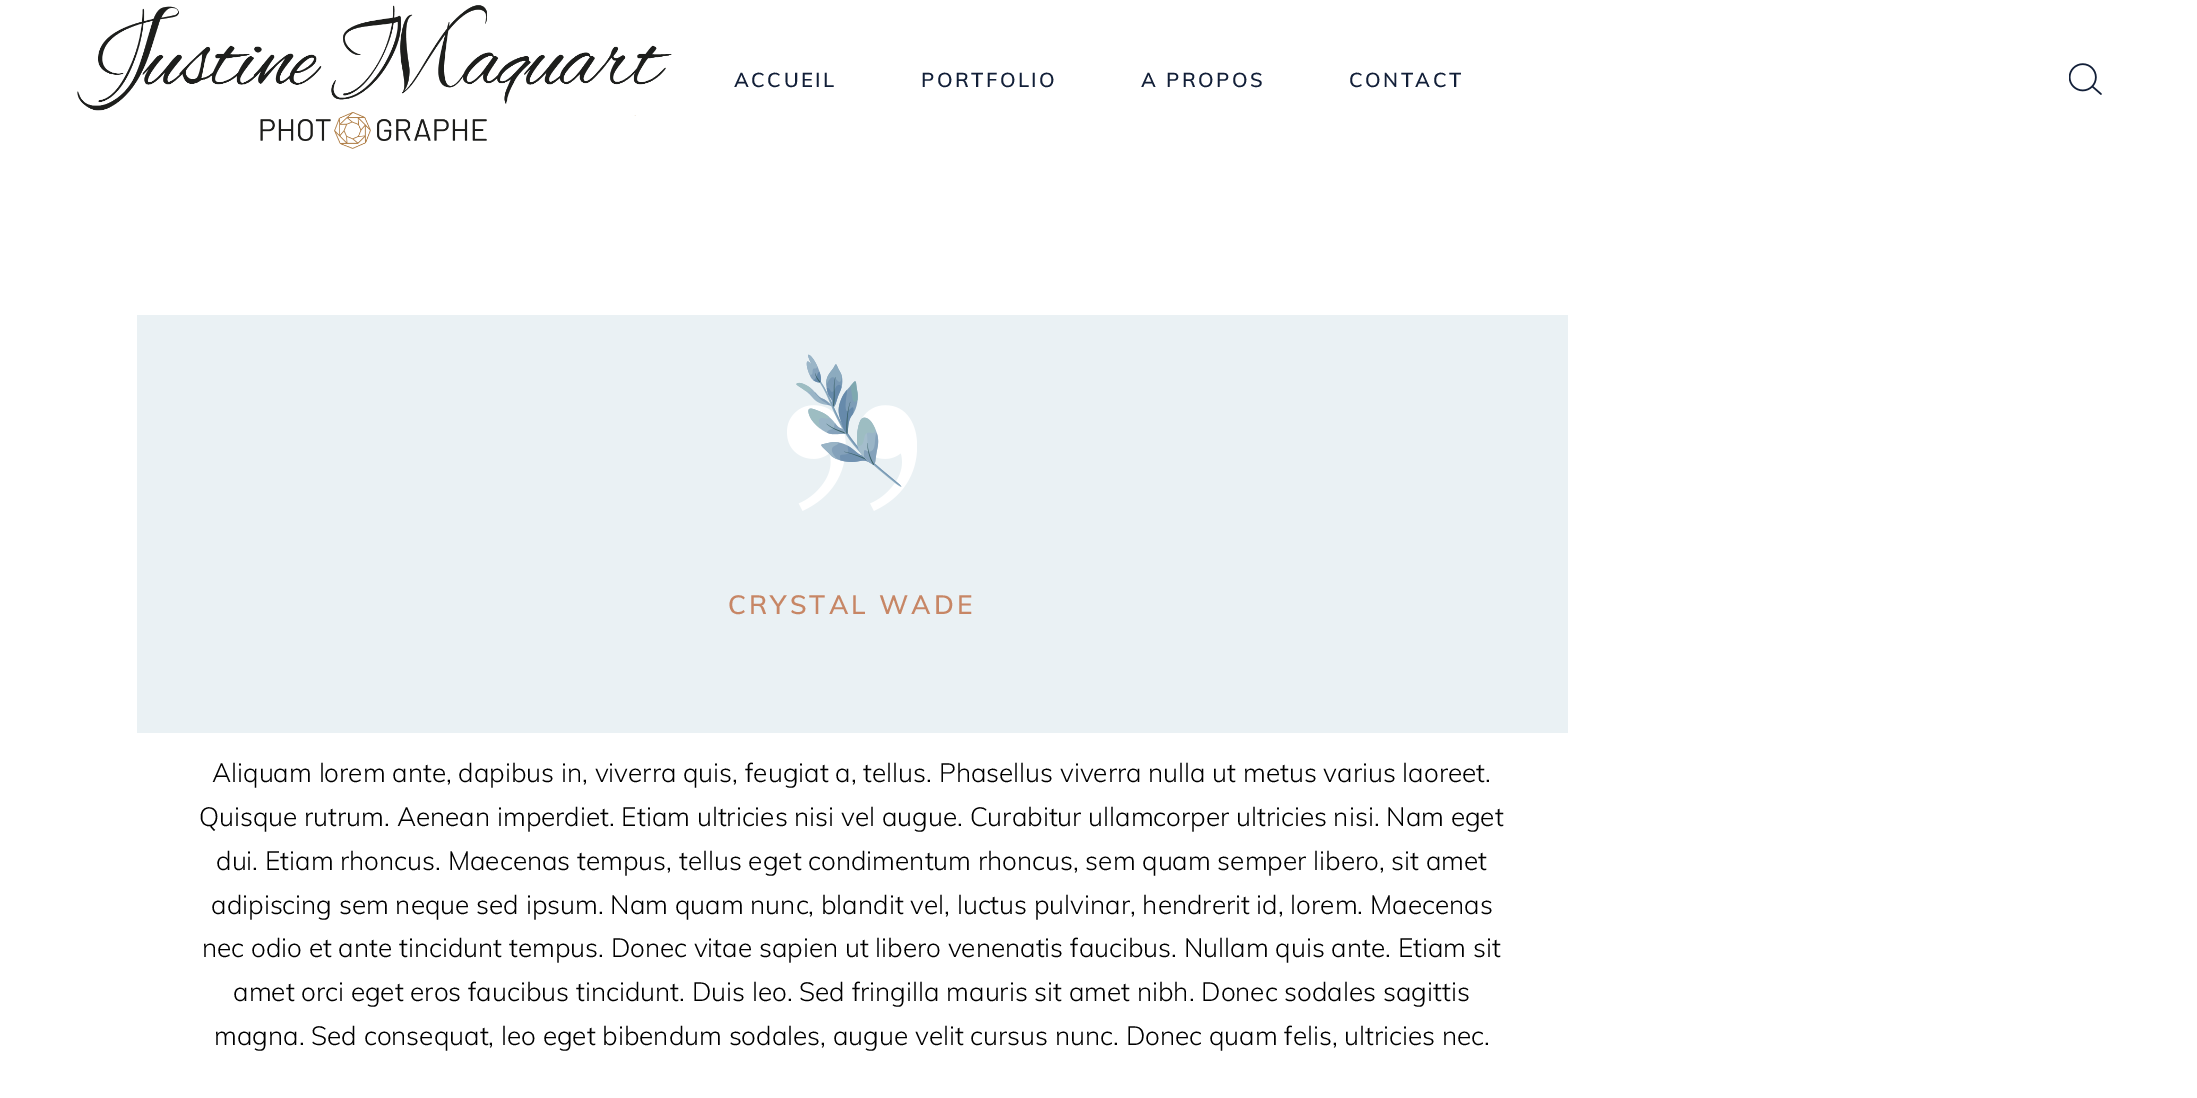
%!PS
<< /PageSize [2197 1098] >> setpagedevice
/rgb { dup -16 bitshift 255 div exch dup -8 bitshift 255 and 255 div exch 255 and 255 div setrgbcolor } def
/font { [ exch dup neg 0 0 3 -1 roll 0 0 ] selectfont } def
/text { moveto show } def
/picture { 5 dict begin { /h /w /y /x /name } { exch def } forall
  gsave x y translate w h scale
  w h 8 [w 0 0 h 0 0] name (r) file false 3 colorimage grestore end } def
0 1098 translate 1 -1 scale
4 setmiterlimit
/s1 { /Muli-Light 26.25 font 16#000000 rgb } def
16#FFFFFF rgb
0 0 2197 1098 rectfill
(pic1.raw) 77 5 595 144 picture
/Muli-SemiBold 20 font
16#121F38 rgb
734 87 moveto 2.5 0 (ACCUEIL) ashow
921 87 moveto 2.5 0 (PORTFOLIO) ashow
1141 87 moveto 2.5 0 (A PROPOS) ashow
1349 87 moveto 2.5 0 (CONTACT) ashow
(pic2.raw) 2069 63 33 32 picture
16#EAF1F4 rgb
137 315 1431 418 rectfill
(pic3.raw) 787 354 130 157 picture
/Muli-SemiBold 26.25 font
16#C78665 rgb
728 614 moveto 3.1 0 (CRYSTAL WADE) ashow
s1
(Aliquam lorem ante, dapibus in, viverra quis, feugiat a, tellus. Phasellus viverra nulla ut metus varius laoreet.) 212 782 text
(Quisque rutrum. Aenean imperdiet. Etiam ultricies nisi vel augue. Curabitur ullamcorper ultricies nisi. Nam eget) 199 826 text
(dui. Etiam rhoncus. Maecenas tempus, tellus eget condimentum rhoncus, sem quam semper libero, sit amet) 216 870 text
(adipiscing sem neque sed ipsum. Nam quam nunc, blandit vel, luctus pulvinar, hendrerit id, lorem. Maecenas) 211 914 text
(nec odio et ante tincidunt tempus. Donec vitae sapien ut libero venenatis faucibus. Nullam quis ante. Etiam sit) 202 957 text
(amet orci eget eros faucibus tincidunt. Duis leo. Sed fringilla mauris sit amet nibh. Donec sodales sagittis) 233 1001 text
(magna. Sed consequat, leo eget bibendum sodales, augue velit cursus nunc. Donec quam felis, ultricies nec.) 214 1045 text
showpage
